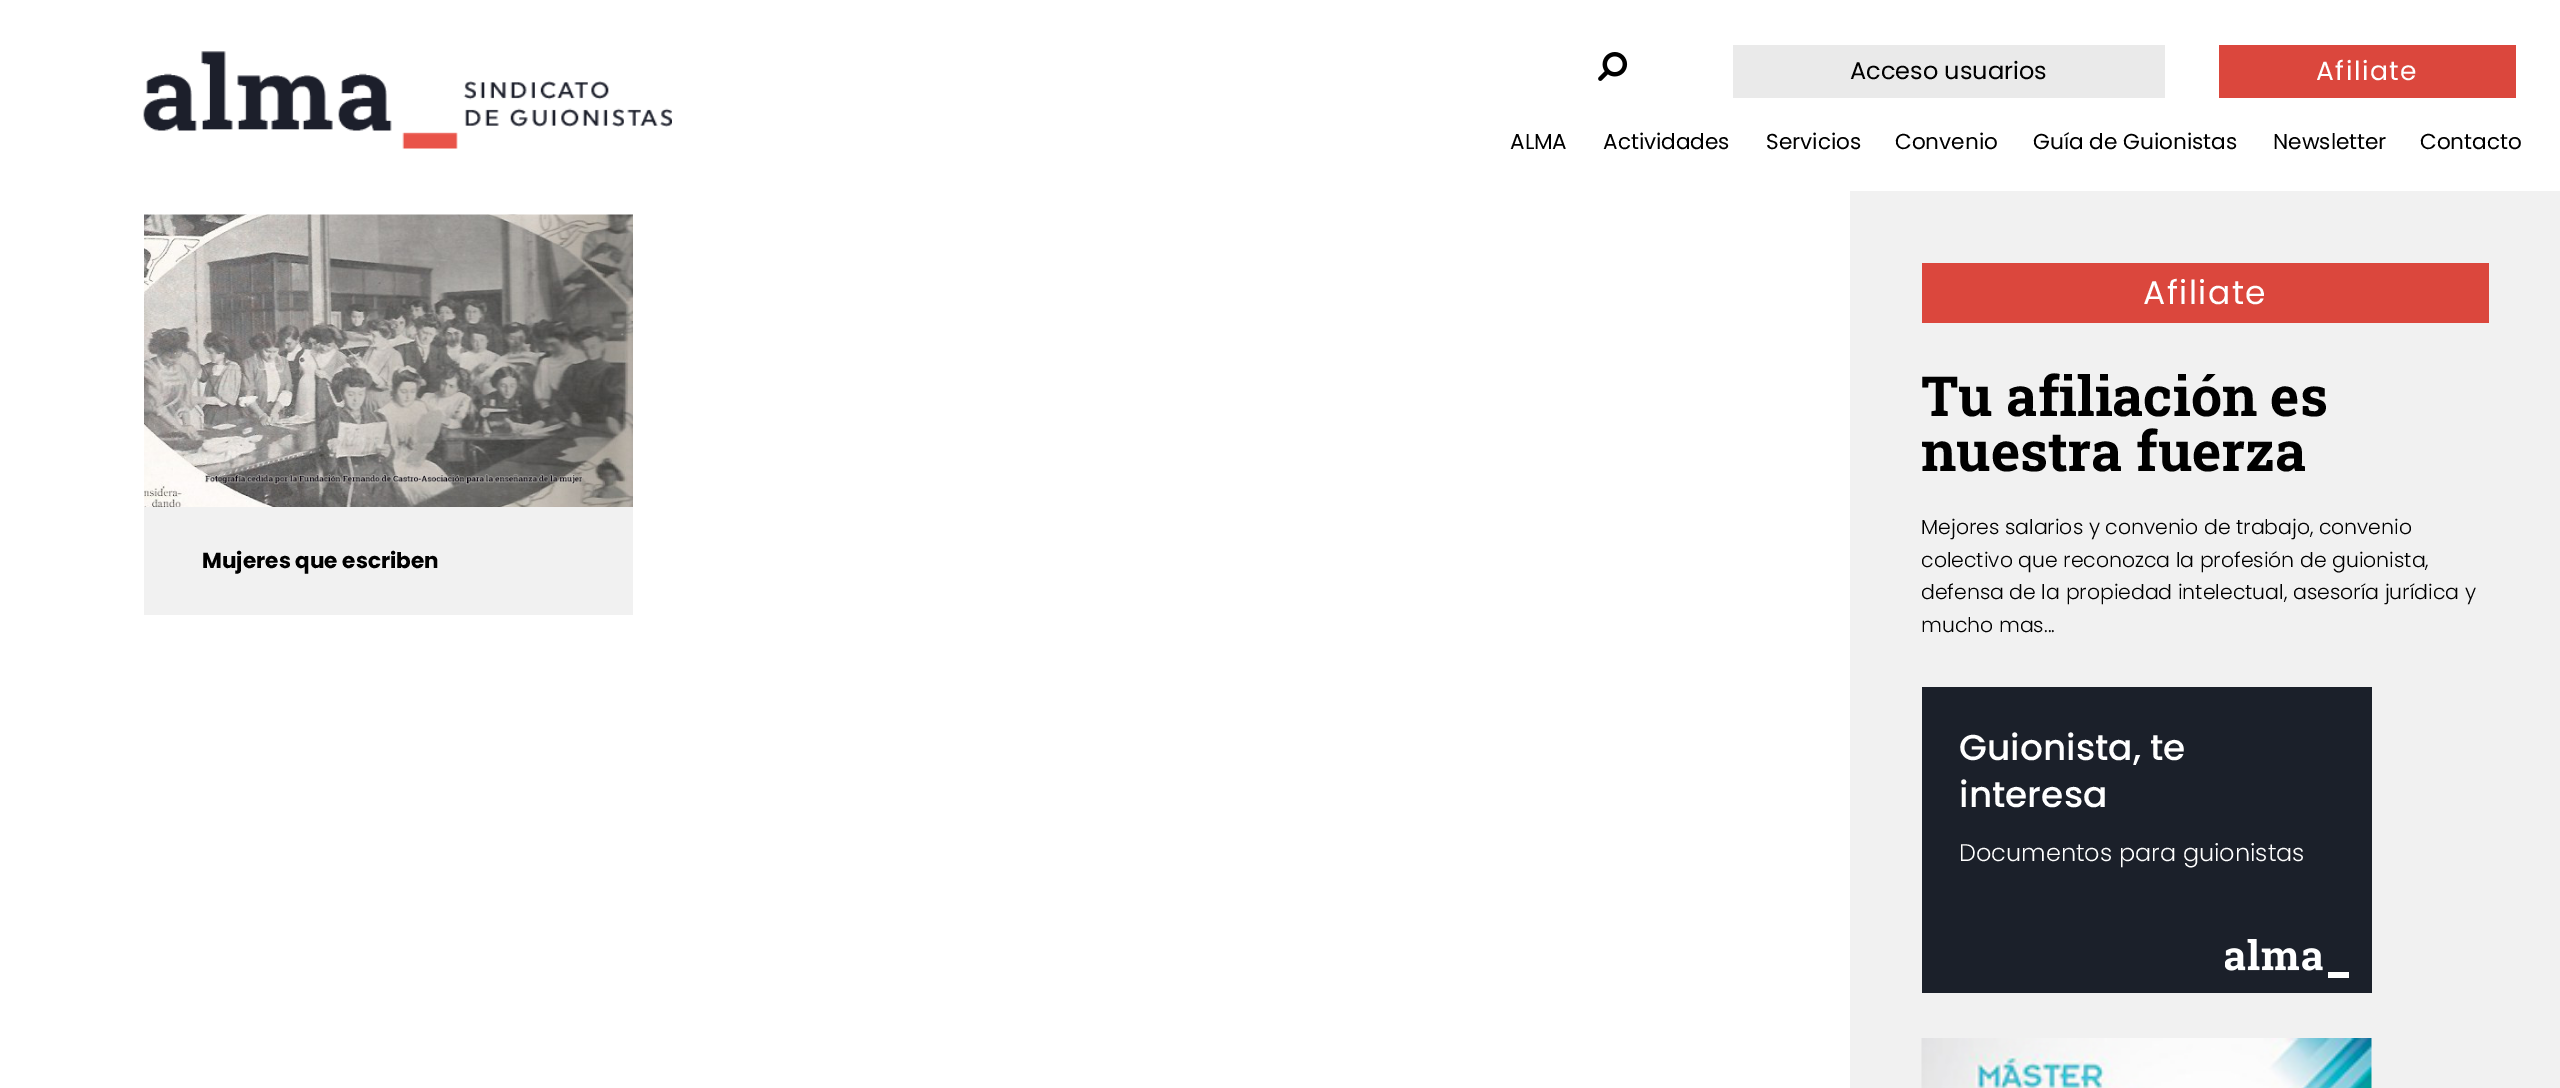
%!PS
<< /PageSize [2560 1088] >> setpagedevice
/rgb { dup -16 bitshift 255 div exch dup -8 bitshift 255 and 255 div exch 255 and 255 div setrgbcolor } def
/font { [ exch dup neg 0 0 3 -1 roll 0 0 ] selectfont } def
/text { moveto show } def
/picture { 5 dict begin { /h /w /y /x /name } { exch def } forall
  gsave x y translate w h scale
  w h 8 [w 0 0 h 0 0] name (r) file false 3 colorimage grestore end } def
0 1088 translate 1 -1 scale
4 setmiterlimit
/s1 { /Poppins-Regular 24 font 16#000000 rgb } def
/s2 { /Poppins-Regular 21.6 font 16#000000 rgb } def
/s3 { /Poppins-Bold 21.6 font 16#000000 rgb } def
/s4 { /RobotoSlab-Bold 55.25 font 16#000000 rgb } def
/s5 { /Poppins-Light 20.4 font 16#000000 rgb } def
/s6 { /Poppins-Medium 36 font 16#FFFFFF rgb } def
/s7 { /Poppins-Light 24 font 16#FFFFFF rgb } def
16#FFFFFF rgb
0 0 2560 1088 rectfill
(pic1.raw) 143 51 529 98 picture
(pic2.raw) 1598 52 30 29 picture
16#EAEAEA rgb
1733 45 432 53 rectfill
s1
(Acceso usuarios) 1850 79 text
16#DB473D rgb
2219 45 297 53 rectfill
/Poppins-Regular 26.5 font
16#FFFFFF rgb
2316 80 moveto 1.5 0 (Afiliate) ashow
s2
(ALMA) 1510 149 text
(Actividades) 1603 149 text
(Servicios) 1766 149 text
(Convenio) 1895 149 text
(Guía de Guionistas) 2033 149 text
(Newsletter) 2273 149 text
(Contacto) 2420 149 text
16#F1F1F1 rgb
144 507 489 108 rectfill
(pic3.raw) 144 214 489 293 picture
s3
(Mujeres que escriben) 202 568 text
16#F1F1F1 rgb
1850 191 710 897 rectfill
16#DB473D rgb
1922 263 567 60 rectfill
/Poppins-Regular 33 font
16#FFFFFF rgb
2143 304 moveto 1.5 0 (Afiliate) ashow
s4
(Tu afiliación es) 1921 416 text
(nuestra fuerza) 1921 471 text
s5
(Mejores salarios y convenio de trabajo, convenio) 1921 534 text
(colectivo que reconozca la profesión de guionista,) 1921 567 text
(defensa de la propiedad intelectual, asesoría jurídica y) 1921 599 text
(mucho mas...) 1921 632 text
16#1B202A rgb
1922 687 450 306 rectfill
s6
(Guionista, te) 1959 760 text
(interesa) 1959 807 text
s7
(Documentos para guionistas) 1959 861 text
(pic4.raw) 2225 939 124 39 picture
(pic5.raw) 1921 1038 451 50 picture
showpage
